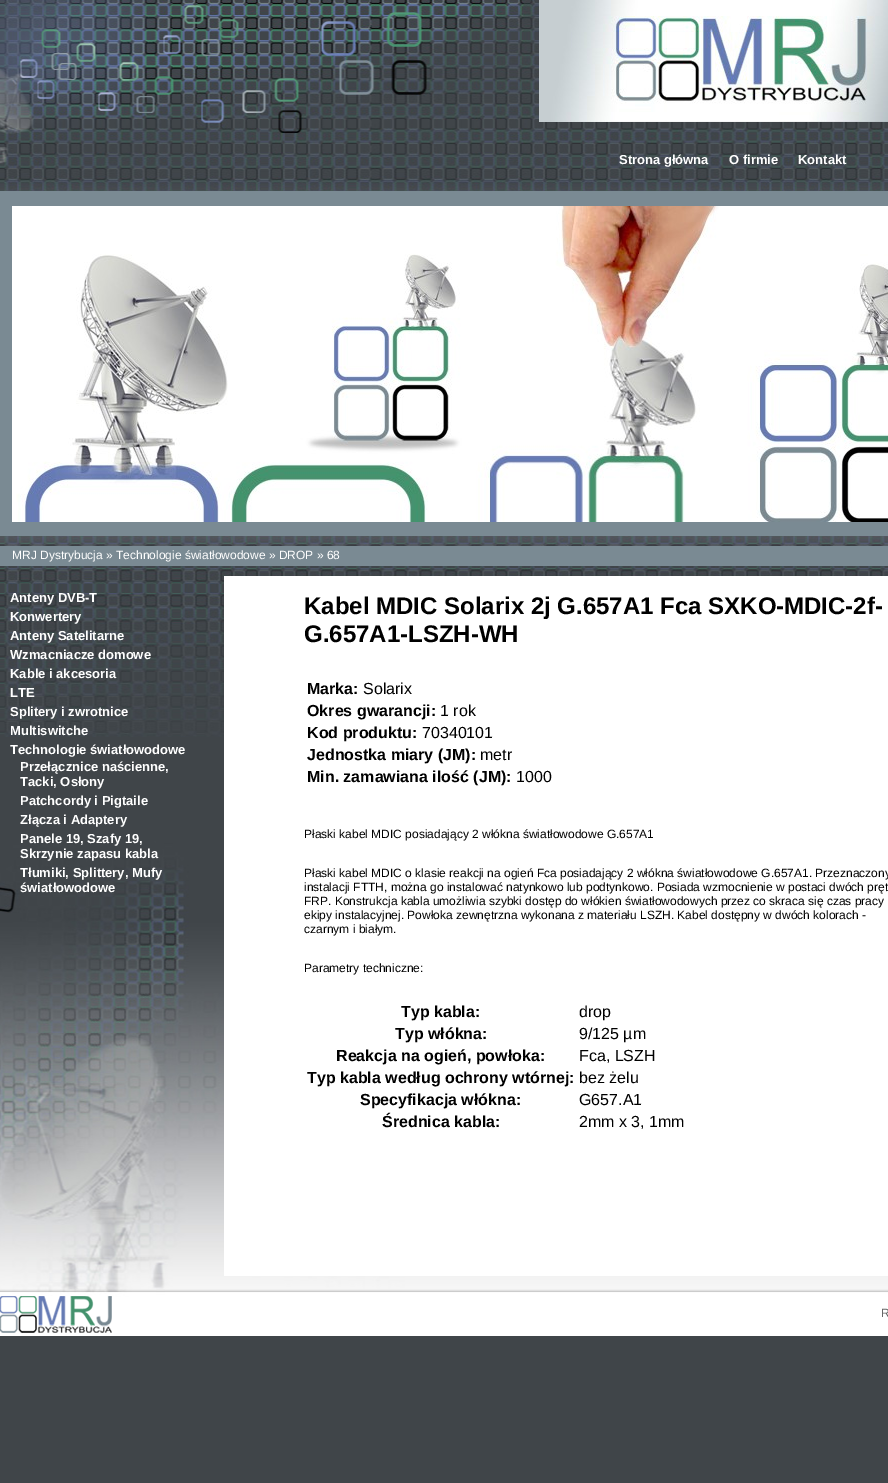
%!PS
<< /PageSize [888 1483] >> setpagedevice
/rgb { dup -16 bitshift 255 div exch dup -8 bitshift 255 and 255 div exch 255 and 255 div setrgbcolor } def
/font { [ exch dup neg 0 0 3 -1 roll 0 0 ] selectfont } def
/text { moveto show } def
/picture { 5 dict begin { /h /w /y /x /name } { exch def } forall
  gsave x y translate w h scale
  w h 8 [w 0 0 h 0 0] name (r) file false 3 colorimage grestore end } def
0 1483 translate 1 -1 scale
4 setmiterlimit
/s1 { /LiberationSans-Bold 13 font 16#FFFFFF rgb } def
/s2 { /LiberationSans-Regular 12 font 16#FFFFFF rgb } def
/s3 { /LiberationSans-Bold 24 font 16#000000 rgb } def
/s4 { /LiberationSans-Bold 16 font 16#000000 rgb } def
/s5 { /LiberationSans-Regular 16 font 16#000000 rgb } def
/s6 { /LiberationSans-Regular 12 font 16#000000 rgb } def
/s7 { /LiberationSans-Regular 12 font 16#666666 rgb } def
16#404549 rgb
0 0 888 1483 rectfill
(pic1.raw) 0 0 888 737 picture
(pic2.raw) 0 737 888 599 picture
(pic3.raw) 539 0 349 122 picture
s1
(Strona główna) 619 164 text
(O firmie) 729 164 text
(Kontakt) 798 164 text
16#7A8A93 rgb
0 191 888 345 rectfill
16#FFFFFF rgb
12 206 4 316 rectfill
(pic4.raw) 16 206 872 316 picture
16#7A8A93 rgb
0 546 888 20 rectfill
s2
(MRJ Dystrybucja » Technologie światłowodowe » DROP » 68) 12 559 text
s1
(Anteny DVB-T) 10 602 text
(Konwertery) 10 621 text
(Anteny Satelitarne) 10 640 text
(Wzmacniacze domowe) 10 659 text
(Kable i akcesoria) 10 678 text
(LTE) 10 697 text
(Splitery i zwrotnice) 10 716 text
(Multiswitche) 10 735 text
(Technologie światłowodowe) 10 754 text
(Przełącznice naścienne,) 20 771 text
(Tacki, Osłony) 20 786 text
(Patchcordy i Pigtaile) 20 805 text
(Złącza i Adaptery) 20 824 text
(Panele 19, Szafy 19,) 20 843 text
(Skrzynie zapasu kabla) 20 858 text
(Tłumiki, Splittery, Mufy) 20 877 text
(światłowodowe) 20 892 text
224 576 664 700 rectfill
s3
(Kabel MDIC Solarix 2j G.657A1 Fca SXKO-MDIC-2f-) 304 614 text
(G.657A1-LSZH-WH) 304 642 text
s4
(Marka:) 307 694 text
s5
(Solarix) 363 694 text
s4
(Okres gwarancji:) 307 716 text
s5
(1 rok) 440 716 text
s4
(Kod produktu:) 307 738 text
s5
(70340101) 422 738 text
s4
(Jednostka miary \(JM\):) 307 760 text
s5
(metr) 480 760 text
s4
(Min. zamawiana ilość \(JM\):) 307 782 text
s5
(1000) 516 782 text
s6
(Płaski kabel MDIC posiadający 2 włókna światłowodowe G.657A1) 304 838 text
(Płaski kabel MDIC o klasie reakcji na ogień Fca posiadający 2 włókna światłowodowe G.657A1. Przeznaczony) 304 877 text
(instalacji FTTH, można go instalować natynkowo lub podtynkowo. Posiada wzmocnienie w postaci dwóch pręt) 304 891 text
(FRP. Konstrukcja kabla umożliwia szybki dostęp do włókien światłowodowych przez co skraca się czas pracy) 304 905 text
(ekipy instalacyjnej. Powłoka zewnętrzna wykonana z materiału LSZH. Kabel dostępny w dwóch kolorach -) 304 919 text
(czarnym i białym.) 304 933 text
(Parametry techniczne:) 304 972 text
s4
(Typ kabla:) 401 1017 text
s5
(drop) 579 1017 text
s4
(Typ włókna:) 395 1039 text
s5
(9/125 µm) 579 1039 text
s4
(Reakcja na ogień, powłoka:) 336 1061 text
s5
(Fca, LSZH) 579 1061 text
s4
(Typ kabla według ochrony wtórnej:) 307 1083 text
s5
(bez żelu) 579 1083 text
s4
(Specyfikacja włókna:) 360 1105 text
s5
(G657.A1) 579 1105 text
s4
(Średnica kabla:) 382 1127 text
s5
(2mm x 3, 1mm) 579 1127 text
(pic5.raw) 0 1296 112 37 picture
s7
(R) 881 1317 text
showpage
